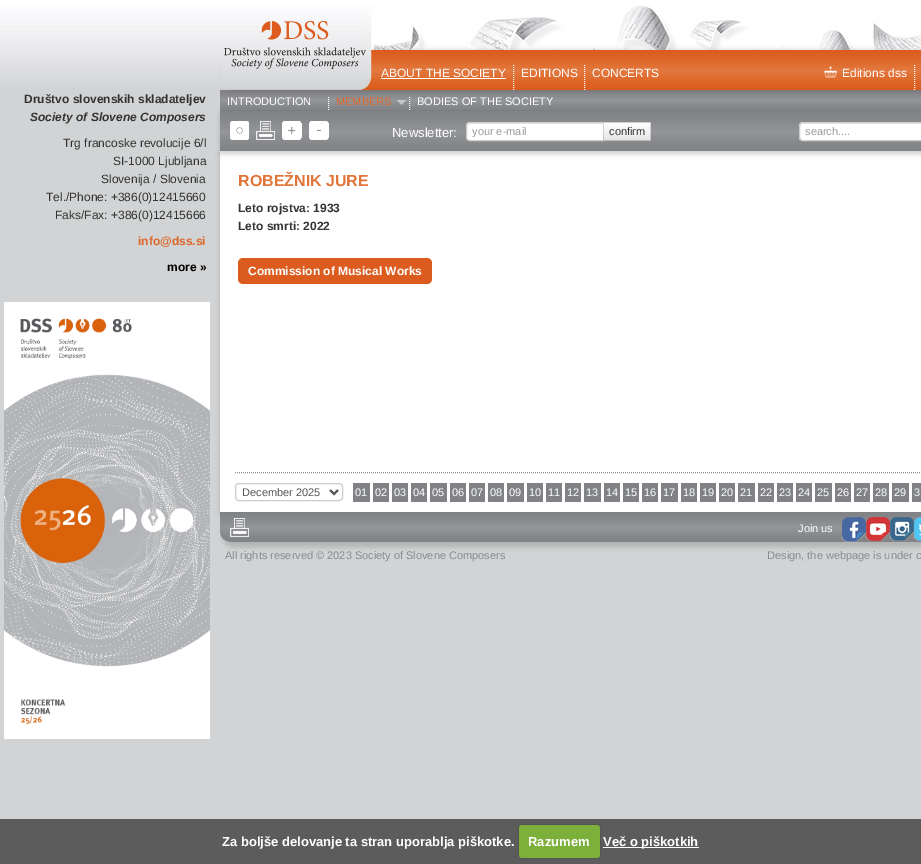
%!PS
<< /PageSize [921 864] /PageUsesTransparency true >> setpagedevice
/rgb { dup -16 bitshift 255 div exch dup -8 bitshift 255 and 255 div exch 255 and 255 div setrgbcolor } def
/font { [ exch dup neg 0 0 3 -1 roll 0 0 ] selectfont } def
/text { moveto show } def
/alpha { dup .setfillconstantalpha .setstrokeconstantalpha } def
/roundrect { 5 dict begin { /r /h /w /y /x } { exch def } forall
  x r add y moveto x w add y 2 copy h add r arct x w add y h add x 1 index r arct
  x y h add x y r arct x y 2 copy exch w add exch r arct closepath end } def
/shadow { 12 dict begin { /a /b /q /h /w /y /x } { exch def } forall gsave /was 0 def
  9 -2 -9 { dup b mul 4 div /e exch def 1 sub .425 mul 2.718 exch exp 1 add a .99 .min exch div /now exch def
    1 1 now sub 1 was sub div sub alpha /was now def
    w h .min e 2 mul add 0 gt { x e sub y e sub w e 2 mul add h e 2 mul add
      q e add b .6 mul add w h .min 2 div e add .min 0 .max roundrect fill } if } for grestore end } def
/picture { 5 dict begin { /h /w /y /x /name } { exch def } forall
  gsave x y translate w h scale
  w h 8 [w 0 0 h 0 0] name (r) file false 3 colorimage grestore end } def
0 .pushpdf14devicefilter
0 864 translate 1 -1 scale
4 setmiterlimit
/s1 { /LiberationSans-Bold 12 font 16#333333 rgb } def
/s2 { /LiberationSans-BoldItalic 12 font 16#333333 rgb } def
/s3 { /LiberationSans-Regular 12 font 16#333333 rgb } def
/s4 { /LiberationSans-Bold 12 font 16#DD6627 rgb } def
/s5 { /LiberationSans-Bold 12 font 16#000000 rgb } def
/s6 { /LiberationSans-Regular 12 font 16#FFFFFF rgb } def
/s7 { /LiberationSans-Regular 11 font 16#FFFFFF rgb } def
/s8 { /LiberationSans-Regular 11 font 16#DD6627 rgb } def
/s9 { /LiberationSans-Regular 13 font 16#FFFFFF rgb } def
/s10 { /LiberationSans-Regular 11 font 16#999999 rgb } def
/s11 { /LiberationSans-Regular 11 font 16#333333 rgb } def
/s12 { /LiberationSans-Bold 16 font 16#E17439 rgb } def
/s13 { /LiberationSans-Bold 12 font 16#FFFFFF rgb } def
/s14 { /LiberationSans-Regular 11 font 16#555555 rgb } def
/s15 { /LiberationSans-Regular 11 font 16#888A8D rgb } def
/s16 { /LiberationSans-Bold 13 font 16#FFFFFF rgb } def
16#D1D3D4 rgb
0 0 921 864 rectfill
s1
(Društvo slovenskih skladateljev) 24 103 text
s2
(Society of Slovene Composers) 30 121 text
s3
(Trg francoske revolucije 6/l) 63 147 text
(SI-1000 Ljubljana) 113 165 text
(Slovenija / Slovenia) 101 183 text
(Tel./Phone: +386\(0\)12415660) 46 201 text
(Faks/Fax: +386\(0\)12415666) 55 219 text
s4
(info@dss.si) 138 245 text
s5
(more ») 167 271 text
(pic1.raw) 4 302 206 437 picture
16#FFFFFF rgb
0 0 921 5 rectfill
(pic2.raw) 0 5 921 85 picture
(pic6.raw) 220 90 701 21 picture
16#323232 rgb
223 50 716 40 10 2.5 0.2 shadow
(pic3.raw) 220 11 154 79 picture
(pic4.raw) 374 50 547 40 picture
16#FFFFFF rgb
[1 1] 0 setdash
513.5 65 moveto 513.5 90 lineto stroke
s6
(ABOUT THE SOCIETY) 381 77 text
381 78 125 1 rectfill
584.5 65 moveto 584.5 90 lineto stroke
(EDITIONS) 521 77 text
(CONCERTS) 592 77 text
914.5 65 moveto 914.5 90 lineto stroke
(pic5.raw) 824 66 14 13 picture
(Editions dss) 842 77 text
16#323232 rgb
220 154 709 361 0 2.5 0.22 shadow
16#FFFFFF rgb
220 151 701 361 rectfill
16#323232 rgb
220 114 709 40 0 2.5 0.22 shadow
16#FFFFFF rgb
328.5 97 moveto 328.5 110 lineto stroke
s7
(INTRODUCTION) 227 105 text
409.5 97 moveto 409.5 110 lineto stroke
s8
(MEMBERS) 336 105 text
(pic7.raw) 397 100 9 5 picture
s7
(BODIES OF THE SOCIETY) 417 105 text
(pic8.raw) 220 111 701 40 picture
(pic9.raw) 230 121 19 19 picture
(pic10.raw) 256 121 19 19 picture
(pic11.raw) 282 121 20 19 picture
(pic12.raw) 309 121 20 19 picture
s9
(Newsletter:) 392 137 text
470 122 moveto 604 122 lineto 604 141 lineto 470 141 lineto 468 141 466 139 466 137 curveto 466 126 lineto 466 124 468 122 470 122 curveto closepath fill
16#ECECEC rgb
470 124 moveto 603 124 lineto 603 123 lineto 470 123 lineto 468 123 467 124 467 126 curveto 467 127 lineto 467 126 468 124 470 124 curveto closepath fill
16#CCCCCC rgb
[] 0 setdash
470 122.5 moveto 603.5 122.5 lineto 603.5 140.5 lineto 470 140.5 lineto 468 140.5 466.5 139 466.5 137 curveto 466.5 126 lineto 466.5 124 468 122.5 470 122.5 curveto closepath stroke
gsave
472 125 126 12 rectclip
s10
(your e-mail) 472 135 text
grestore
16#F5F5F5 rgb
603 122 48 19 rectfill
gsave 603 123 moveto 651 123 lineto 651 140 lineto 603 140 lineto closepath clip newpath
<< /ShadingType 2 /ColorSpace /DeviceRGB /Coords [627 123 627 140] /Extend [true true] /Function << /FunctionType 2 /Domain [0 1] /C0 [1 1 1] /C1 [0.902 0.902 0.902] /N 1 >> >> shfill grestore
16#D0D0D0 rgb
603 122 moveto 651 122 lineto 650 123 lineto 604 123 lineto closepath fill
0.15 alpha
16#000000 rgb
651 122 moveto 651 141 lineto 650 140 lineto 650 123 lineto closepath fill
0.25 alpha
651 141 moveto 603 141 lineto 604 140 lineto 650 140 lineto closepath fill
0.15 alpha
603 141 moveto 603 122 lineto 604 123 lineto 604 140 lineto closepath fill
1 alpha
s11
(confirm) 609 135 text
16#FFFFFF rgb
803 122 moveto 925 122 lineto 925 141 lineto 803 141 lineto 801 141 799 139 799 137 curveto 799 126 lineto 799 124 801 122 803 122 curveto closepath fill
16#ECECEC rgb
803 124 moveto 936 124 lineto 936 123 lineto 803 123 lineto 801 123 800 124 800 126 curveto 800 127 lineto 800 125 801 124 803 124 curveto closepath fill
16#CCCCCC rgb
803 122.5 moveto 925.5 122.5 lineto 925.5 140.5 lineto 803 140.5 lineto 801 140.5 799.5 139 799.5 137 curveto 799.5 126 lineto 799.5 124 801 122.5 803 122.5 curveto closepath stroke
s10
(search....) 805 135 text
s12
(ROBEŽNIK JURE) 238 186 text
s1
(Leto rojstva: 1933) 238 212 text
(Leto smrti: 2022) 238 230 text
16#DB5C1E rgb
238 258 194 26 5 roundrect fill
s13
(Commission of Musical Works) 248 275 text
16#8D8F92 rgb
[1 1] 0 setdash
235 472.5 moveto 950 472.5 lineto stroke
16#CCCCCC rgb
[] 0 setdash
235.5 483.5 107 17 3.5 roundrect stroke
16#555555 rgb
2 setlinewidth
330 490 moveto 334 494 lineto 338 490 lineto stroke
s14
(December 2025) 242 496 text
16#808285 rgb
353 483 17 19 rectfill
s7
(01) 355 496 text
16#808285 rgb
373 483 16 19 rectfill
s7
(02) 375 496 text
16#808285 rgb
392 483 16 19 rectfill
s7
(03) 394 496 text
16#808285 rgb
411 483 16 19 rectfill
s7
(04) 413 496 text
16#808285 rgb
430 483 17 19 rectfill
s7
(05) 432 496 text
16#808285 rgb
450 483 16 19 rectfill
s7
(06) 452 496 text
16#808285 rgb
469 483 16 19 rectfill
s7
(07) 471 496 text
16#808285 rgb
488 483 16 19 rectfill
s7
(08) 490 496 text
16#808285 rgb
507 483 17 19 rectfill
s7
(09) 509 496 text
16#808285 rgb
527 483 16 19 rectfill
s7
(10) 529 496 text
16#808285 rgb
546 483 16 19 rectfill
s7
(11) 548 496 text
16#808285 rgb
565 483 16 19 rectfill
s7
(12) 567 496 text
16#808285 rgb
584 483 17 19 rectfill
s7
(13) 586 496 text
16#808285 rgb
604 483 16 19 rectfill
s7
(14) 606 496 text
16#808285 rgb
623 483 16 19 rectfill
s7
(15) 625 496 text
16#808285 rgb
642 483 16 19 rectfill
s7
(16) 644 496 text
16#808285 rgb
661 483 17 19 rectfill
s7
(17) 663 496 text
16#808285 rgb
681 483 16 19 rectfill
s7
(18) 683 496 text
16#808285 rgb
700 483 16 19 rectfill
s7
(19) 702 496 text
16#808285 rgb
719 483 16 19 rectfill
s7
(20) 721 496 text
16#808285 rgb
738 483 17 19 rectfill
s7
(21) 740 496 text
16#808285 rgb
758 483 16 19 rectfill
s7
(22) 760 496 text
16#808285 rgb
777 483 16 19 rectfill
s7
(23) 779 496 text
16#808285 rgb
796 483 16 19 rectfill
s7
(24) 798 496 text
16#808285 rgb
815 483 17 19 rectfill
s7
(25) 817 496 text
16#808285 rgb
835 483 16 19 rectfill
s7
(26) 837 496 text
16#808285 rgb
854 483 16 19 rectfill
s7
(27) 856 496 text
16#808285 rgb
873 483 16 19 rectfill
s7
(28) 875 496 text
16#808285 rgb
892 483 17 19 rectfill
s7
(29) 894 496 text
16#808285 rgb
912 483 9 19 rectfill
s7
(3) 914 496 text
16#323232 rgb
223 517 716 30 10 2.5 0.2 shadow
(pic13.raw) 220 512 701 30 picture
(pic14.raw) 230 518 19 19 picture
s7
(Join us) 798 532 text
(pic15.raw) 842 517 24 25 picture
(pic16.raw) 866 517 24 24 picture
(pic17.raw) 890 517 24 24 picture
(pic18.raw) 914 517 7 24 picture
s15
(All rights reserved © 2023 Society of Slovene Composers) 225 559 text
(Design, the webpage is under c) 767 559 text
16#5C5C5C rgb
0 819 921 45 rectfill
s16
(Za boljše delovanje ta stran uporablja piškotke.) 222 846 text
16#000000 rgb
519 825 81 33 3 1 0.25 shadow
16#7DAF3B rgb
519 825 81 33 3 roundrect fill
s16
(Razumem) 528 846 text
603 847 96 1 rectfill
(Več o piškotkih) 603 846 text
.poppdf14devicefilter showpage
